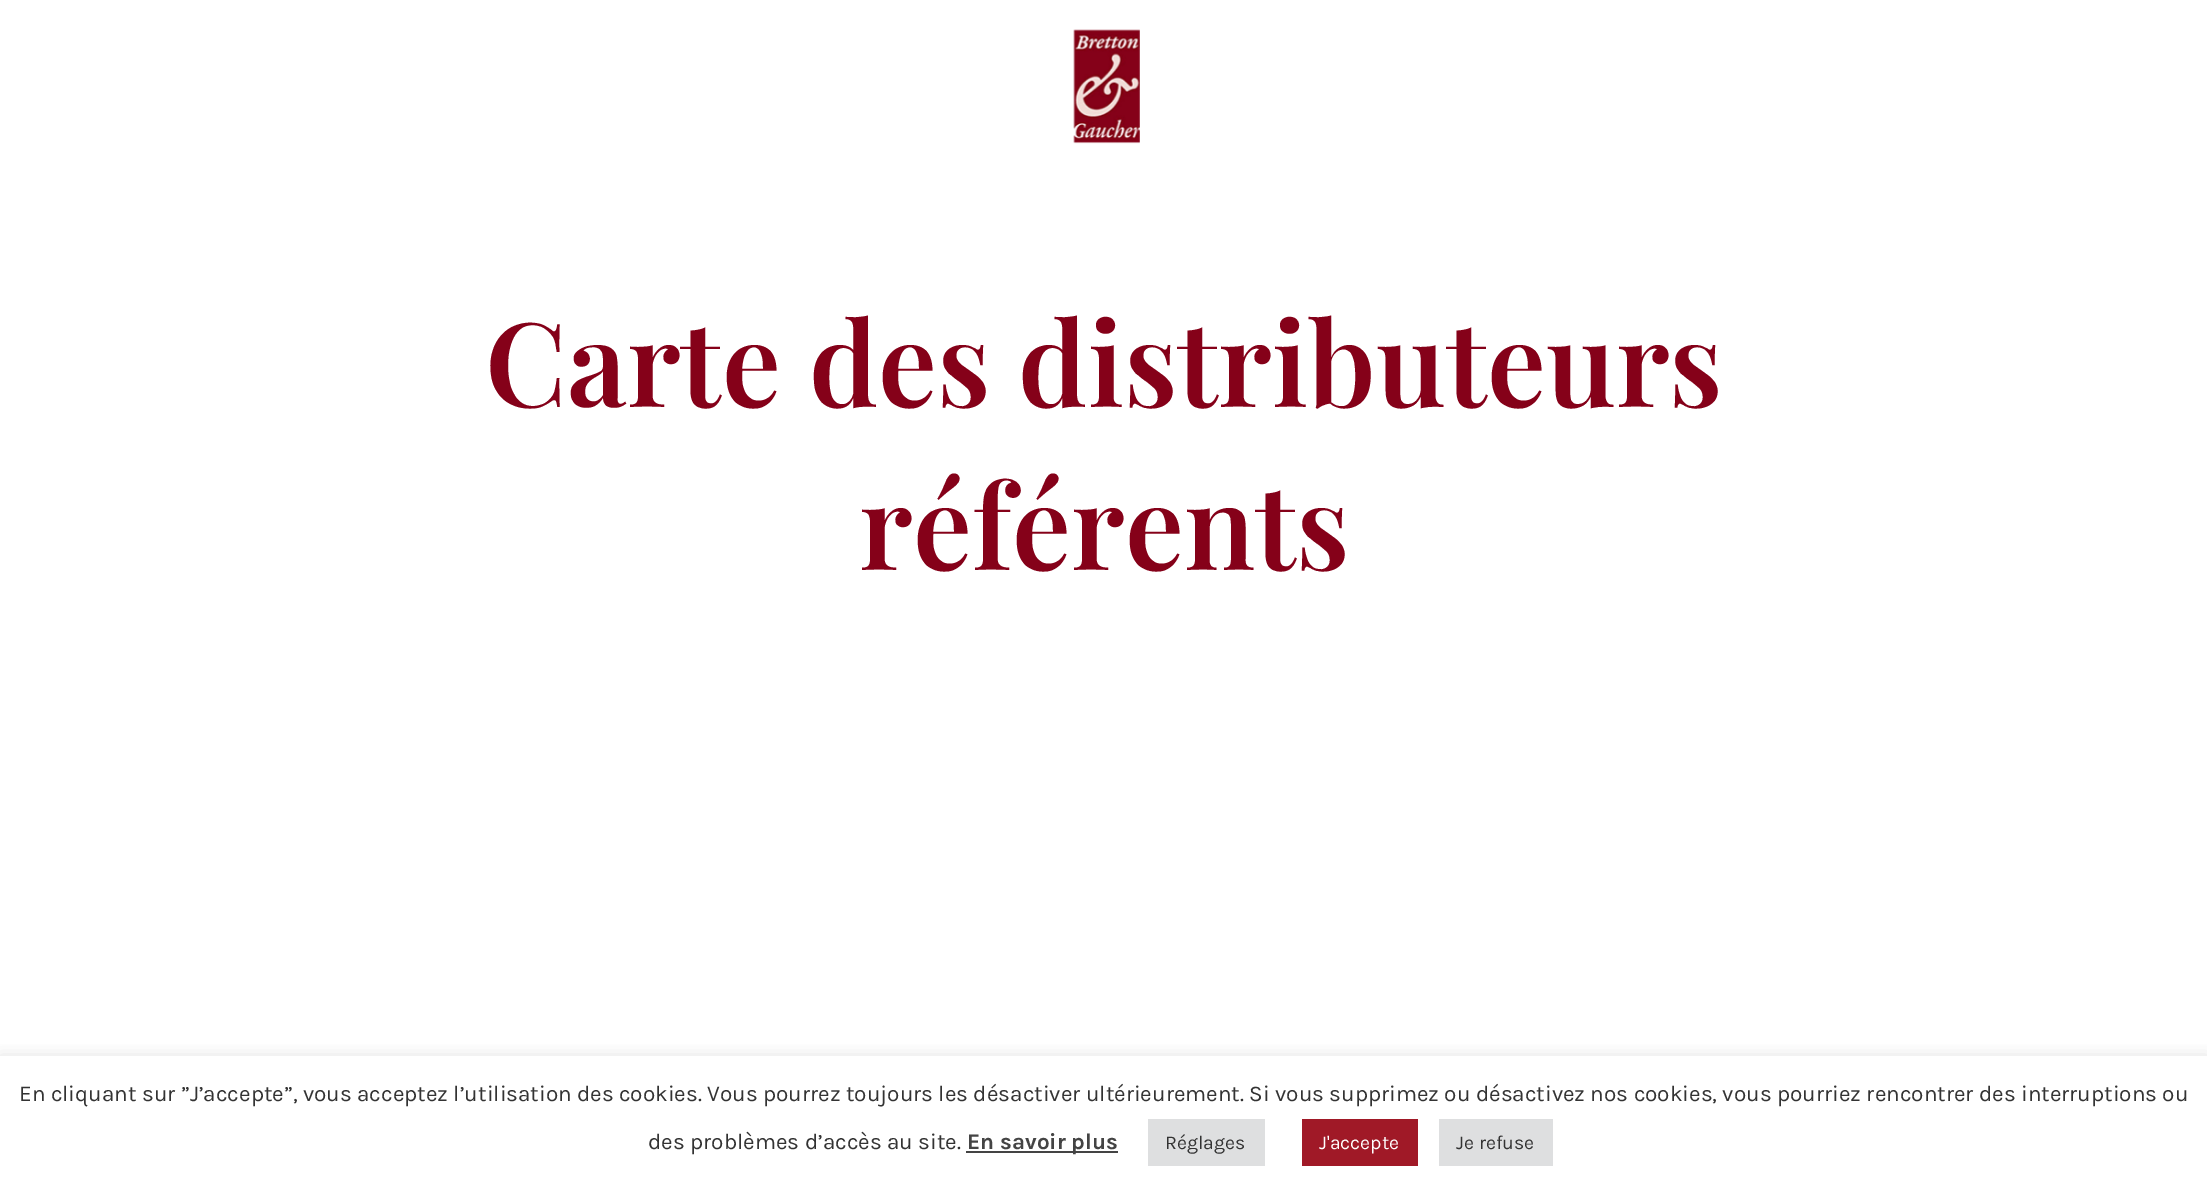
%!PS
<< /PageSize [2207 1191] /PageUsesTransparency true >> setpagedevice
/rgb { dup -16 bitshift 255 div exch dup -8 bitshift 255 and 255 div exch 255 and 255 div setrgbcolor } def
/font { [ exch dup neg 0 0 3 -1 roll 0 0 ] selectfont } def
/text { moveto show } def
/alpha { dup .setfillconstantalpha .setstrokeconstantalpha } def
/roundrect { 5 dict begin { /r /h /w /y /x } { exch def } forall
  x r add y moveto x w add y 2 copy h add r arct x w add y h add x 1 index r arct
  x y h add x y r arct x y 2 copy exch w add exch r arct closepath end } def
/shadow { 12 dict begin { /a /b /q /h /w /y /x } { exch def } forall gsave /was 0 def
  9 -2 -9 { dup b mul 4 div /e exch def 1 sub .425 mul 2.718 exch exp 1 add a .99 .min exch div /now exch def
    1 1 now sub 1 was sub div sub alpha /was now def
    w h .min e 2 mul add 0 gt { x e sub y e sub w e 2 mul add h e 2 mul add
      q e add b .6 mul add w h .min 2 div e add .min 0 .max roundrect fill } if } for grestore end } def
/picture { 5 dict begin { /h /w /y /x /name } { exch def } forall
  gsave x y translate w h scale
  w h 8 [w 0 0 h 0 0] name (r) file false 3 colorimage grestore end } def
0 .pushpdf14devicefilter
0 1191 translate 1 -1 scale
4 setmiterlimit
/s1 { /PlayfairDisplay-SemiBold 117 font 16#850119 rgb } def
/s2 { /Karla-Regular 22.5 font 16#333333 rgb } def
/s3 { /Karla-Bold 22.5 font 16#444444 rgb } def
/s4 { /Karla-Regular 19.5 font 16#333333 rgb } def
/s5 { /Karla-Regular 19.5 font 16#FFFFFF rgb } def
16#FFFFFF rgb
0 0 2207 1191 rectfill
(pic1.raw) 1073 29 67 115 picture
s1
(Carte des distributeurs) 485 407 text
(référents) 859 570 text
gsave
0 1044 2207 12 rectclip
16#ACABAB rgb
0 1055 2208 135 0 7.5 0.3 shadow
grestore
s2
(En cliquant sur ”J’accepte”, vous acceptez l’utilisation des cookies. Vous pourrez toujours les désactiver ultérieurement. Si vous supprimez ou désactivez nos cookies, vous pourriez rencontrer des interruptions ou) 19 1101 text
(des problèmes d’accès au site.) 648 1149 text
16#444444 rgb
966 1151 152 2 rectfill
s3
(En savoir plus) 967 1149 text
16#DEDFE0 rgb
1148 1119 117 47 rectfill
s4
(Réglages) 1165 1149 text
16#A01927 rgb
1302 1119 116 47 rectfill
s5
(J'accepte) 1319 1149 text
16#DEDFE0 rgb
1439 1119 114 47 rectfill
s4
(Je refuse) 1456 1149 text
.poppdf14devicefilter showpage
